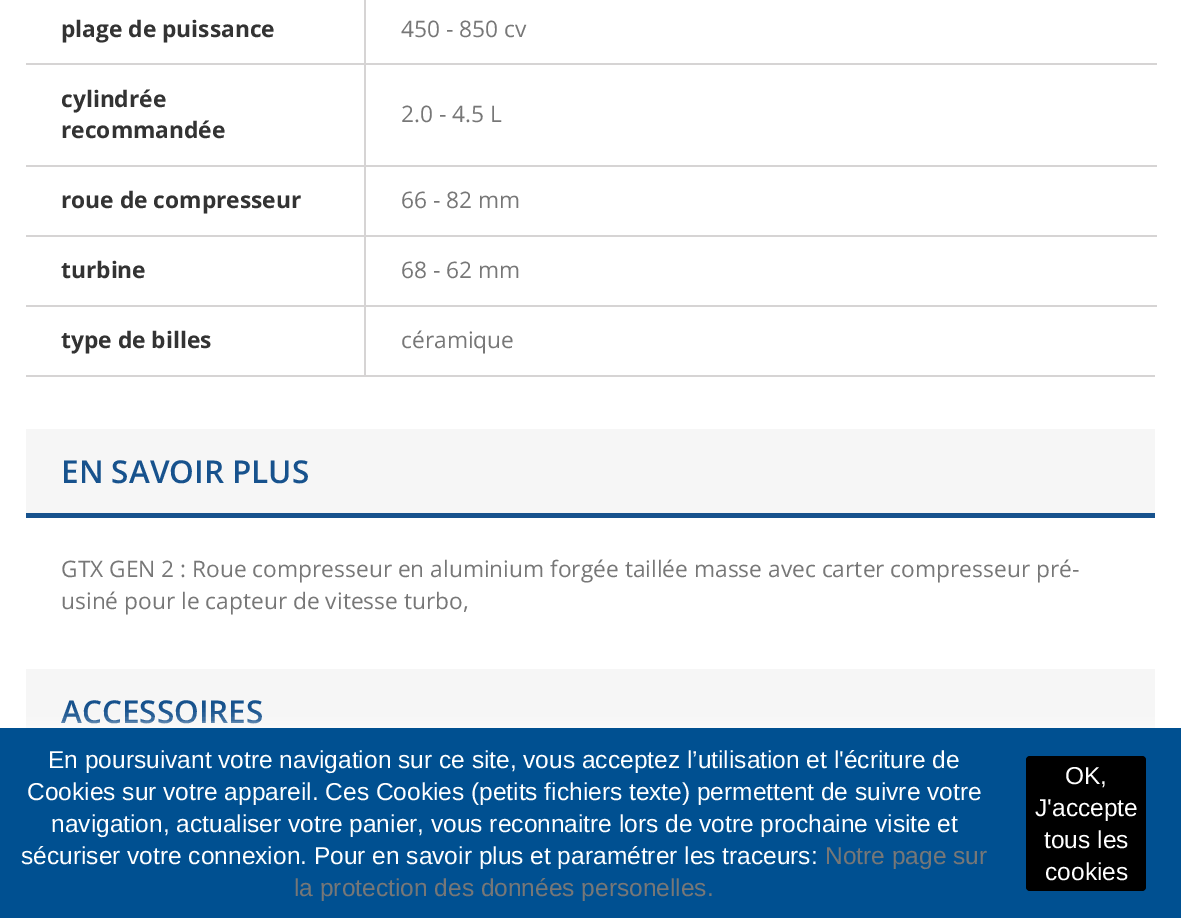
%!PS
<< /PageSize [1181 918] /PageUsesTransparency true >> setpagedevice
/rgb { dup -16 bitshift 255 div exch dup -8 bitshift 255 and 255 div exch 255 and 255 div setrgbcolor } def
/font { [ exch dup neg 0 0 3 -1 roll 0 0 ] selectfont } def
/text { moveto show } def
/alpha { dup .setfillconstantalpha .setstrokeconstantalpha } def
/roundrect { 5 dict begin { /r /h /w /y /x } { exch def } forall
  x r add y moveto x w add y 2 copy h add r arct x w add y h add x 1 index r arct
  x y h add x y r arct x y 2 copy exch w add exch r arct closepath end } def
/shadow { 12 dict begin { /a /b /q /h /w /y /x } { exch def } forall gsave /was 0 def
  9 -2 -9 { dup b mul 4 div /e exch def 1 sub .425 mul 2.718 exch exp 1 add a .99 .min exch div /now exch def
    1 1 now sub 1 was sub div sub alpha /was now def
    w h .min e 2 mul add 0 gt { x e sub y e sub w e 2 mul add h e 2 mul add
      q e add b .6 mul add w h .min 2 div e add .min 0 .max roundrect fill } if } for grestore end } def
0 .pushpdf14devicefilter
0 918 translate 1 -1 scale
4 setmiterlimit
/s1 { /OpenSans-Bold 22.75 font 16#333333 rgb } def
/s2 { /OpenSans-Regular 22.75 font 16#777777 rgb } def
/s3 { /OpenSans-SemiBold 31.5 font 16#17528D rgb } def
/s4 { /LiberationSans-Regular 24.5 font 16#FFFFFF rgb } def
/s5 { /LiberationSans-Regular 24.5 font 16#777777 rgb } def
16#FFFFFF rgb
0 0 1181 918 rectfill
16#D6D4D4 rgb
26 375 1129 2 rectfill
s1
(plage de puissance) 61 37 text
s2
(450 - 850 cv) 401 37 text
16#D6D4D4 rgb
26 63 1131 2 rectfill
s1
(cylindrée) 61 107 text
(recommandée) 61 138 text
s2
(2.0 - 4.5 L) 401 122 text
16#D6D4D4 rgb
26 165 1131 2 rectfill
s1
(roue de compresseur) 61 208 text
s2
(66 - 82 mm) 401 208 text
16#D6D4D4 rgb
26 235 1131 2 rectfill
s1
(turbine) 61 278 text
s2
(68 - 62 mm) 401 278 text
16#D6D4D4 rgb
26 305 1131 2 rectfill
364 0 2 376 rectfill
s1
(type de billes) 61 348 text
s2
(céramique) 401 348 text
16#F6F6F6 rgb
26 429 1129 84 rectfill
16#17528D rgb
26 513 1129 5 rectfill
s3
(EN SAVOIR PLUS) 61 483 text
s2
(GTX GEN 2 : Roue compresseur en aluminium forgée taillée masse avec carter compresseur pré-) 61 577 text
(usiné pour le capteur de vitesse turbo,) 61 609 text
16#F6F6F6 rgb
26 669 1129 59 rectfill
s3
(ACCESSOIRES) 61 723 text
16#FFFFFF rgb
0 728 1181 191 0 9 1 shadow
16#005091 rgb
0 728 1181 190 rectfill
s4
(En poursuivant votre navigation sur ce site, vous acceptez l’utilisation et l'écriture de) 48 768 text
(Cookies sur votre appareil. Ces Cookies \(petits fichiers texte\) permettent de suivre votre) 27 800 text
(navigation, actualiser votre panier, vous reconnaitre lors de votre prochaine visite et) 51 832 text
(sécuriser votre connexion. Pour en savoir plus et paramétrer les traceurs:) 21 864 text
s5
(Notre page sur) 825 864 text
(la protection des données personelles.) 294 896 text
16#000000 rgb
1026 756 120 135 4 roundrect fill
s4
(OK,) 1065 784 text
(J'accepte) 1035 816 text
(tous les) 1044 848 text
(cookies) 1045 880 text
.poppdf14devicefilter showpage
